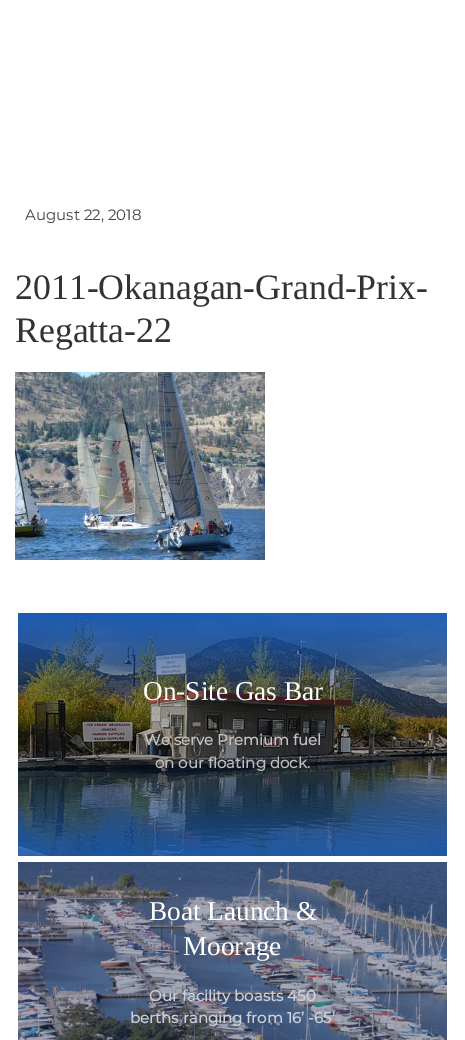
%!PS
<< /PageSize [465 1040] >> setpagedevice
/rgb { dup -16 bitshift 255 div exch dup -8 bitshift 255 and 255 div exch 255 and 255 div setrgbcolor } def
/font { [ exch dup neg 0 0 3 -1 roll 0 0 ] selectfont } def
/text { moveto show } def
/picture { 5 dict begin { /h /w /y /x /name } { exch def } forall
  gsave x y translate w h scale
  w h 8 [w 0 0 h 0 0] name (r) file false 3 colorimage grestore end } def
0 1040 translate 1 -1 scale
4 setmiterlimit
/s1 { /Montserrat-Thin 15 font 16#444444 rgb } def
/s2 { /Tinos-Regular 35.75 font 16#333333 rgb } def
/s3 { /Tinos-Regular 27.25 font 16#FFFFFF rgb } def
/s4 { /Montserrat-Bold 15 font 16#C4C3C3 rgb } def
/s5 { /Montserrat-Bold 15 font 16#BCBEC0 rgb } def
/s6 { /Montserrat-Bold 15 font 16#CED1D8 rgb } def
16#FFFFFF rgb
0 0 465 1040 rectfill
s1
(August 22, 2018) 25 220 text
s2
(2011-Okanagan-Grand-Prix-) 15 299 text
(Regatta-22) 15 342 text
(pic1.raw) 15 372 250 188 picture
(pic2.raw) 18 613 429 243 picture
s3
(On-Site Gas Bar) 143 700 text
s4
(We serve Premium fuel) 144 745 text
s5
(on our floating dock.) 155 768 text
(pic3.raw) 18 862 429 178 picture
s3
(Boat Launch &) 149 920 text
(Moorage) 183 955 text
s6
(Our facility boasts 450) 149 1001 text
(berths ranging from 16’ -65’) 130 1023 text
showpage
